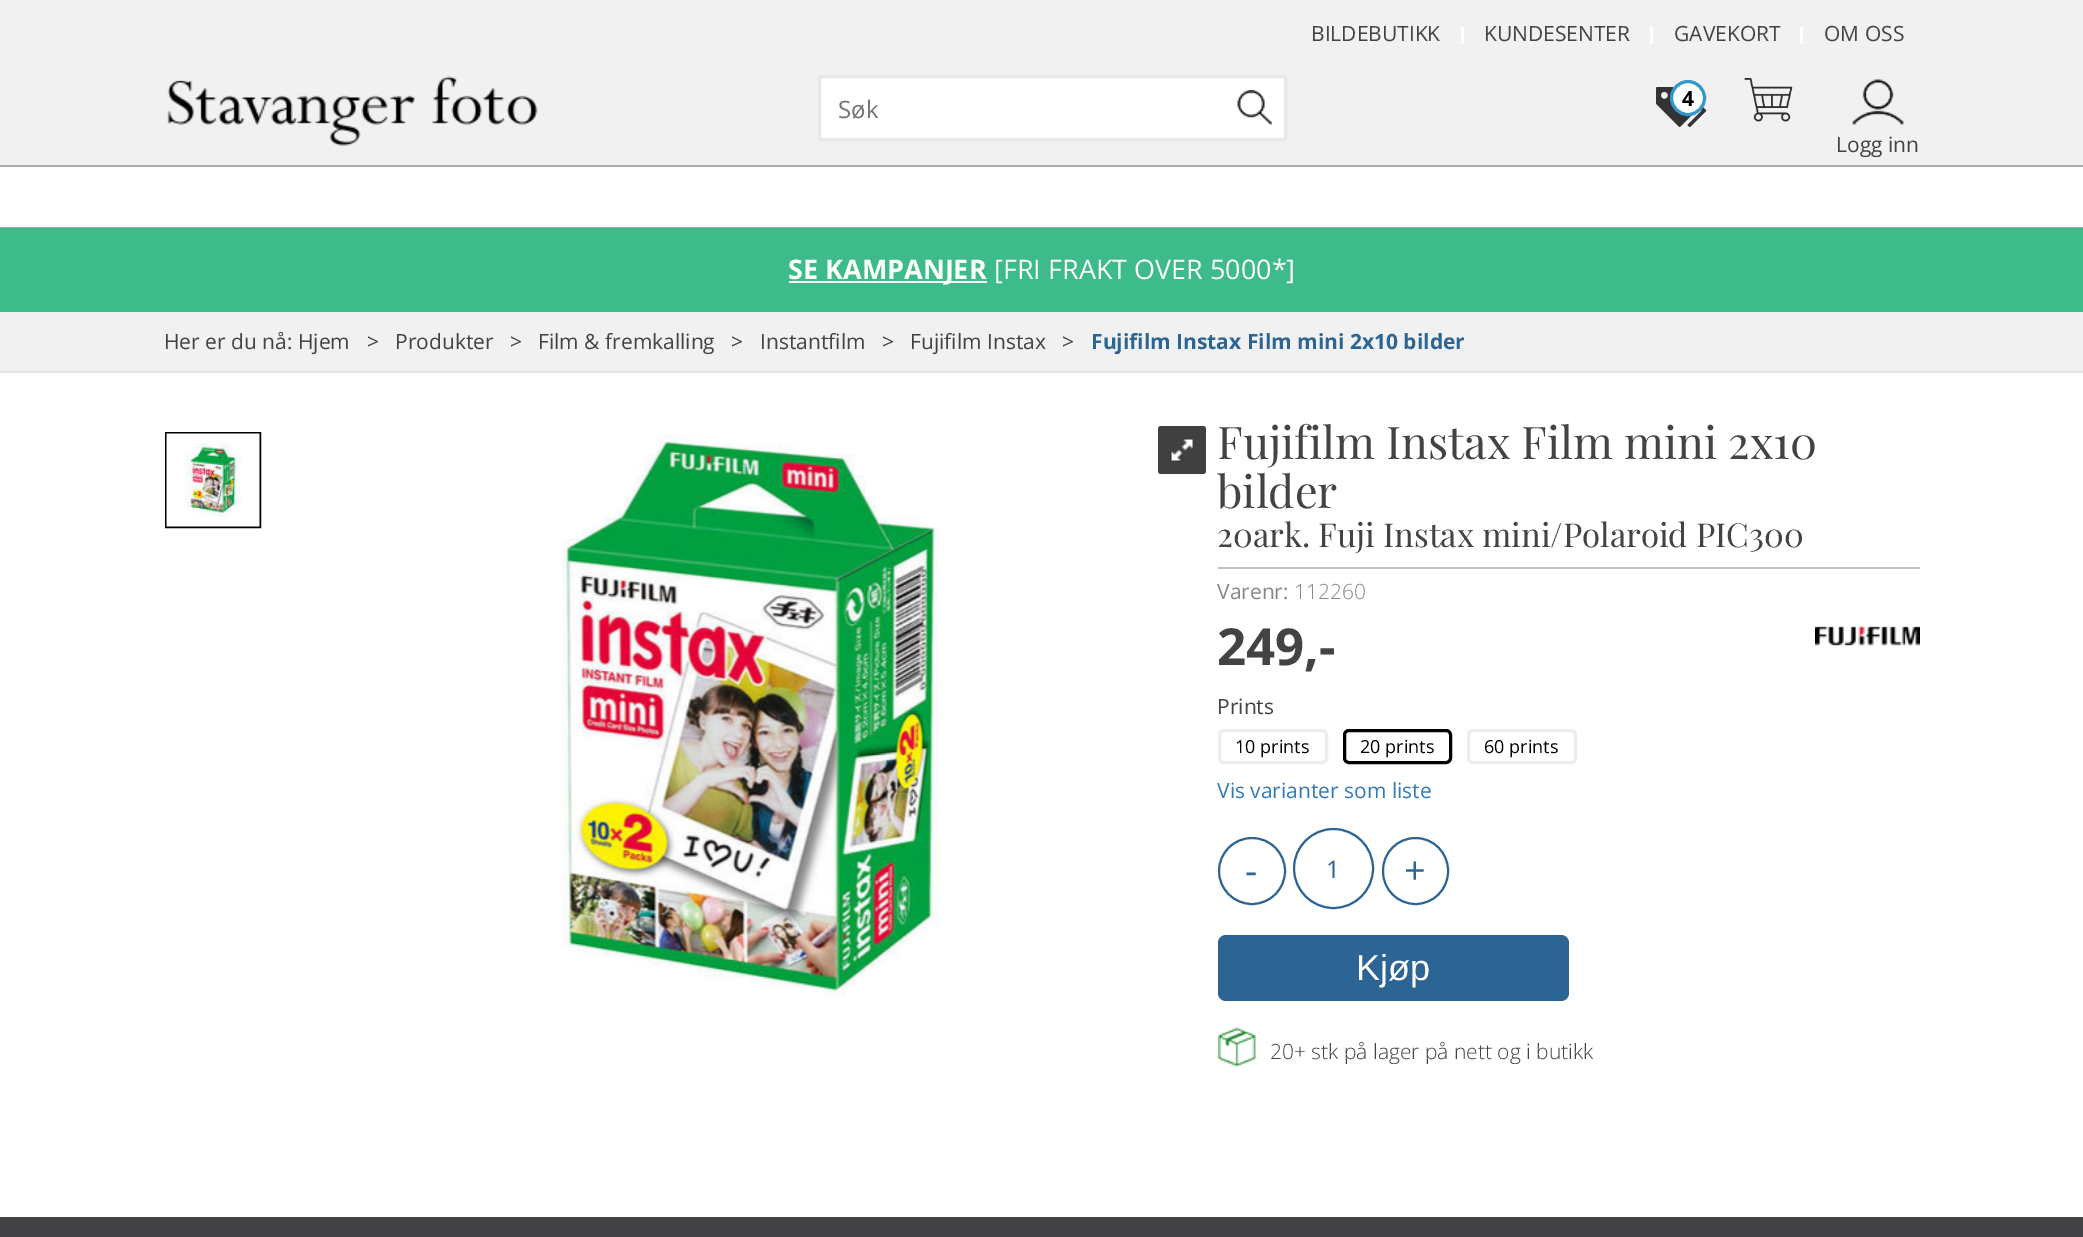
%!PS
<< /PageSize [2083 1237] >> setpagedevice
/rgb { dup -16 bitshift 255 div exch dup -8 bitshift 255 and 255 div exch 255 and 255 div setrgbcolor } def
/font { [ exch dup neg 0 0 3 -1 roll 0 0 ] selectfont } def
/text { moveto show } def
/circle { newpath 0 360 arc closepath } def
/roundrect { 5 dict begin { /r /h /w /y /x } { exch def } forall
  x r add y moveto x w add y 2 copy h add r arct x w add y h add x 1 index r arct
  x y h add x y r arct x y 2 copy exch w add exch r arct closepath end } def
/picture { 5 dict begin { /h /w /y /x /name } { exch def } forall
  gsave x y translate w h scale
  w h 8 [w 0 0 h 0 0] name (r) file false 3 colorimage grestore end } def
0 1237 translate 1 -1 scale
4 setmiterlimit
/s1 { /OpenSans-Regular 21 font 16#434244 rgb } def
/s2 { /OpenSans-Regular 24 font 16#757575 rgb } def
/s3 { /OpenSans-Bold 21 font 16#000000 rgb } def
/s4 { /OpenSans-Bold 27 font 16#FFFFFF rgb } def
/s5 { /OpenSans-Regular 27 font 16#FFFFFF rgb } def
/s6 { /OpenSans-Bold 21 font 16#2C6594 rgb } def
/s7 { /PlayfairDisplay-Regular 45 font 16#434244 rgb } def
/s8 { /PlayfairDisplay-Regular 33 font 16#434244 rgb } def
/s9 { /OpenSans-Regular 21 font 16#888888 rgb } def
/s10 { /OpenSans-Light 21 font 16#888888 rgb } def
/s11 { /OpenSans-Bold 51 font 16#434244 rgb } def
/s12 { /OpenSans-Regular 18 font 16#000000 rgb } def
/s13 { /OpenSans-Regular 21 font 16#337AB7 rgb } def
/s14 { /OpenSans-Regular 38 font 16#2C6594 rgb } def
/s15 { /OpenSans-Regular 24 font 16#2C6594 rgb } def
/s16 { /LiberationSans-Regular 36 font 16#FFFFFF rgb } def
/s17 { /OpenSans-Light 21 font 16#434244 rgb } def
16#FFFFFF rgb
0 0 2083 1237 rectfill
16#F1F1F1 rgb
0 0 2083 165 rectfill
s1
(BILDEBUTIKK) 1311 41 text
16#FFFFFF rgb
1461 27 3 17 rectfill
s1
(KUNDESENTER) 1484 41 text
16#FFFFFF rgb
1650 27 3 17 rectfill
s1
(GAVEKORT) 1674 41 text
16#FFFFFF rgb
1800 27 3 17 rectfill
s1
(OM OSS) 1824 41 text
(pic1.raw) 167 76 371 70 picture
16#FFFFFF rgb
819.5 76.5 466 63 1.5 roundrect gsave fill grestore
16#E8E8E8 rgb
3 setlinewidth
stroke
s2
(Søk) 838 118 text
(pic2.raw) 1237 90 35 35 picture
(pic3.raw) 1656 87 51 41 picture
16#FFFFFF rgb
1688 98 16.5 circle gsave fill grestore
16#3399CC rgb
stroke
s3
(4) 1682 106 text
(pic4.raw) 1744 78 49 44 picture
(pic5.raw) 1852 79 52 46 picture
s1
(Logg inn) 1836 152 text
16#AAAAAA rgb
0 165 2083 2 rectfill
0 227 2083 1 rectfill
16#3EBB8A rgb
0 228 2083 84 rectfill
16#FFFFFF rgb
789 281 198 2 rectfill
s4
(SE KAMPANJER) 788 279 text
s5
([FRI FRAKT OVER 5000*]) 994 279 text
16#F1F1F1 rgb
0 312 2083 59 rectfill
16#E5E5E5 rgb
0 371 2083 2 rectfill
s1
(Her er du nå: Hjem) 164 349 text
(>) 367 349 text
(Produkter) 395 349 text
(>) 510 349 text
(Film & fremkalling) 538 349 text
(>) 731 349 text
(Instantfilm) 760 349 text
(>) 882 349 text
(Fujifilm Instax) 910 349 text
(>) 1062 349 text
s6
(Fujifilm Instax Film mini 2x10 bilder) 1091 349 text
16#000000 rgb
2 setlinewidth
166 433 94 94 rectstroke
(pic6.raw) 166 433 94 94 picture
(pic7.raw) 561 433 378 565 picture
16#404040 rgb
1158 426 48 48 3 roundrect fill
(pic8.raw) 1170 438 24 24 picture
16#C0C2C0 rgb
1218 567 702 2 rectfill
s7
(Fujifilm Instax Film mini 2x10) 1217 459 text
(bilder) 1217 508 text
s8
(20ark. Fuji Instax mini/Polaroid PIC300) 1217 547 text
s9
(Varenr:) 1217 599 text
s10
(112260) 1294 599 text
s11
(249,-) 1217 665 text
(pic9.raw) 1815 626 105 20 picture
s1
(Prints) 1217 714 text
16#EDEDED rgb
3 setlinewidth
1219.5 730.5 107 32 4.5 roundrect stroke
s12
(10 prints) 1235 753 text
1344.5 730.5 106 32 4.5 roundrect stroke
(20 prints) 1360 753 text
16#EDEDED rgb
1468.5 730.5 107 32 4.5 roundrect stroke
s12
(60 prints) 1484 753 text
s13
(Vis varianter som liste) 1217 798 text
16#2C6594 rgb
2 setlinewidth
1252 871 33 circle stroke
s14
(-) 1245 884 text
1333.5 868.5 39.5 circle stroke
s15
(1) 1326 878 text
1383 838 65 66 32.5 roundrect stroke
s14
(+) 1404 884 text
1218 935 351 66 8 roundrect fill
s16
(Kjøp) 1356 980 text
(pic10.raw) 1218 1027 38 40 picture
s17
(20+ stk på lager på nett og i butikk) 1270 1059 text
0 1217 2083 20 rectfill
showpage
